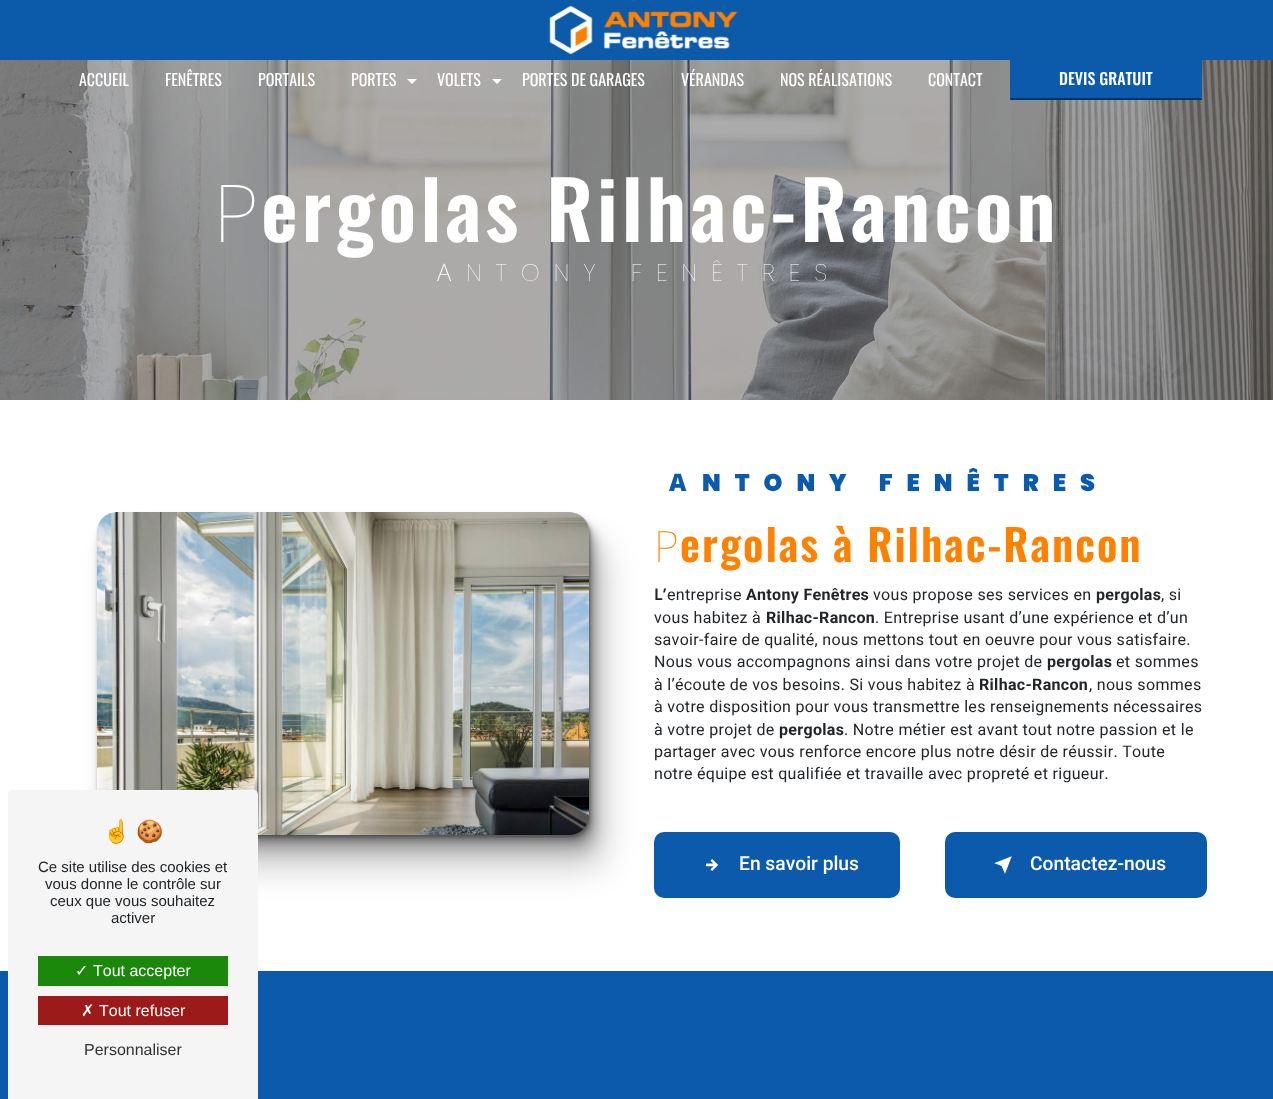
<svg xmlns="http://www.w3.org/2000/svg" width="1273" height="1099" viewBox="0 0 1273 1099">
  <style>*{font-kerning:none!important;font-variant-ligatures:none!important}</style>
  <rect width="100%" height="100%" fill="#fff"/>
  <path d="M0 0h1273v60H0z" fill="#0c5bab"/>
  <image x="549" y="5" width="189" height="50" href="img/1.png"/>
  <image x="0" y="60" width="1273" height="340" href="img/2.png"/>
  <path d="M407 79H417L412 84Z" fill="#fff"/>
  <path d="M492 79H502L497 84Z" fill="#fff"/>
  <path d="M1010 60h192v40H1010z" fill="#0c5aab"/>
  <path d="M1202 100H1010L1011 98H1201Z" fill="#00356f"/>
  <rect x="113" y="544" width="492" height="323" rx="20" fill="#00000033" filter="blur(16px)"/>
  <rect x="105" y="528" width="492" height="323" rx="20" fill="#00000033" filter="blur(8px)"/>
  <rect x="101" y="520" width="492" height="323" rx="20" fill="#00000033" filter="blur(4px)"/>
  <rect x="99" y="516" width="492" height="323" rx="20" fill="#00000033" filter="blur(2px)"/>
  <rect x="98" y="514" width="492" height="323" rx="20" fill="#00000033" filter="blur(1px)"/>
  <image x="97" y="512" width="492" height="323" href="img/3.png"/>
  <rect x="654" y="832" width="246" height="66" rx="10" fill="#0c5aab"/>
  <image x="706" y="859" width="12" height="12" href="img/4.png"/>
  <rect x="945" y="832" width="262" height="66" rx="10" fill="#0c5aab"/>
  <image x="994" y="856" width="18" height="18" href="img/5.png"/>
  <path d="M0 971h1273v128H0z" fill="#0c5aab"/>
  <path d="M13 790H253C256 790 258 792 258 795V1099H8V795C8 792 10 790 13 790Z" fill="#f5f5f5"/>
  <path d="M38 956h190v30H38z" fill="#1b870b"/>
  <path d="M38 996h190v29H38z" fill="#9c1a1a"/>
  <g font-family="Oswald" font-size="16" fill="#fff">
    <text x="79" y="86">ACCUEIL</text>
    <text x="165" y="86">FENÊTRES</text>
    <text x="258" y="86">PORTAILS</text>
    <text x="351" y="86">PORTES</text>
    <text x="437" y="86">VOLETS</text>
    <text x="522" y="86">PORTES DE GARAGES</text>
    <text x="681" y="86">VÉRANDAS</text>
    <text x="780" y="86">NOS RÉALISATIONS</text>
    <text x="928" y="86">CONTACT</text>
  </g>
  <text x="1059" y="85" font-family="Oswald" font-size="16" font-weight="500" fill="#fff">DEVIS GRATUIT</text>
  <text x="213" y="242" font-family="Noto Sans" font-size="80" font-weight="100" letter-spacing="4" fill="#fff">P</text>
  <text x="261" y="242" font-family="Oswald" font-size="80" font-weight="600" letter-spacing="4" fill="#fff">ergolas Rilhac-Rancon</text>
  <text x="437" y="281" font-family="Noto Sans" font-size="24" font-weight="200" letter-spacing="14" fill="#fff">A</text>
  <text x="466" y="281" font-family="Poppins" font-size="24" font-weight="100" letter-spacing="14" fill="#fff">NTONY FENÊTRES</text>
  <text x="669" y="491" font-family="Noto Sans" font-size="24" font-weight="900" letter-spacing="14" fill="#0c5aab">A</text>
  <text x="702" y="491" font-family="Poppins" font-size="24" font-weight="900" letter-spacing="14" fill="#0c5aab">NTONY FENÊTRES</text>
  <text x="654" y="562" font-family="Noto Sans" font-size="43.25" font-weight="100" letter-spacing="2" fill="#ff8100">P</text>
  <text x="680" y="562" font-family="Oswald" font-size="43.25" font-weight="600" letter-spacing="2" fill="#ff8100">ergolas à Rilhac-Rancon</text>
  <text x="654" y="600" font-family="Noto Sans" font-size="16" font-weight="600" letter-spacing="0.32" fill="#212529">L’</text>
  <text x="667" y="600" font-family="Roboto" font-size="16" letter-spacing="0.32" fill="#212529">entreprise</text>
  <text x="746" y="600" font-family="Roboto" font-size="16" font-weight="bold" letter-spacing="0.32" fill="#212529">Antony Fenêtres</text>
  <text x="873" y="600" font-family="Roboto" font-size="16" letter-spacing="0.32" fill="#212529">vous propose ses services en</text>
  <text x="1096" y="600" font-family="Roboto" font-size="16" font-weight="bold" letter-spacing="0.32" fill="#212529">pergolas</text>
  <g font-family="Roboto" font-size="16" letter-spacing="0.32" fill="#212529">
    <text x="1161" y="600">, si</text>
    <text x="654" y="623">vous habitez à</text>
  </g>
  <text x="766" y="623" font-family="Roboto" font-size="16" font-weight="bold" letter-spacing="0.32" fill="#212529">Rilhac-Rancon</text>
  <g font-family="Roboto" font-size="16" letter-spacing="0.32" fill="#212529">
    <text x="875" y="623">. Entreprise usant d’une expérience et d’un</text>
    <text x="654" y="645">savoir-faire de qualité, nous mettons tout en oeuvre pour vous satisfaire.</text>
    <text x="654" y="667">Nous vous accompagnons ainsi dans votre projet de</text>
  </g>
  <text x="1047" y="667" font-family="Roboto" font-size="16" font-weight="bold" letter-spacing="0.32" fill="#212529">pergolas</text>
  <g font-family="Roboto" font-size="16" letter-spacing="0.32" fill="#212529">
    <text x="1116" y="667">et sommes</text>
    <text x="654" y="690">à l’écoute de vos besoins. Si vous habitez à</text>
  </g>
  <text x="979" y="690" font-family="Roboto" font-size="16" font-weight="bold" letter-spacing="0.32" fill="#212529">Rilhac-Rancon</text>
  <g font-family="Roboto" font-size="16" letter-spacing="0.32" fill="#212529">
    <text x="1089" y="690">, nous sommes</text>
    <text x="654" y="712">à votre disposition pour vous transmettre les renseignements nécessaires</text>
    <text x="654" y="735">à votre projet de</text>
  </g>
  <text x="779" y="735" font-family="Roboto" font-size="16" font-weight="bold" letter-spacing="0.32" fill="#212529">pergolas</text>
  <g font-family="Roboto" font-size="16" letter-spacing="0.32" fill="#212529">
    <text x="844" y="735">. Notre métier est avant tout notre passion et le</text>
    <text x="654" y="757">partager avec vous renforce encore plus notre désir de réussir. Toute</text>
    <text x="654" y="779">notre équipe est qualifiée et travaille avec propreté et rigueur.</text>
  </g>
  <g font-family="Roboto" font-size="19.25" font-weight="500" fill="#fff">
    <text x="739" y="870">En savoir plus</text>
    <text x="1030" y="870">Contactez-nous</text>
  </g>
  <g font-family="Noto Color Emoji" font-size="22" fill="#212529">
    <text x="103" y="839">☝</text>
    <text x="136" y="839">🍪</text>
  </g>
  <g font-family="Liberation Sans" font-size="15" fill="#212529">
    <text x="38" y="872">Ce site utilise des cookies et</text>
    <text x="45" y="889">vous donne le contrôle sur</text>
    <text x="50" y="906">ceux que vous souhaitez</text>
    <text x="111" y="923">activer</text>
  </g>
  <text x="75" y="976" font-family="DejaVu Sans" font-size="16" fill="#fff">✓</text>
  <text x="93" y="976" font-family="Liberation Sans" font-size="16" fill="#fff">Tout accepter</text>
  <text x="81" y="1016" font-family="DejaVu Sans" font-size="16" fill="#fff">✗</text>
  <text x="99" y="1016" font-family="Liberation Sans" font-size="16" fill="#fff">Tout refuser</text>
  <text x="84" y="1055" font-family="Liberation Sans" font-size="16" fill="#333">Personnaliser</text>
</svg>
